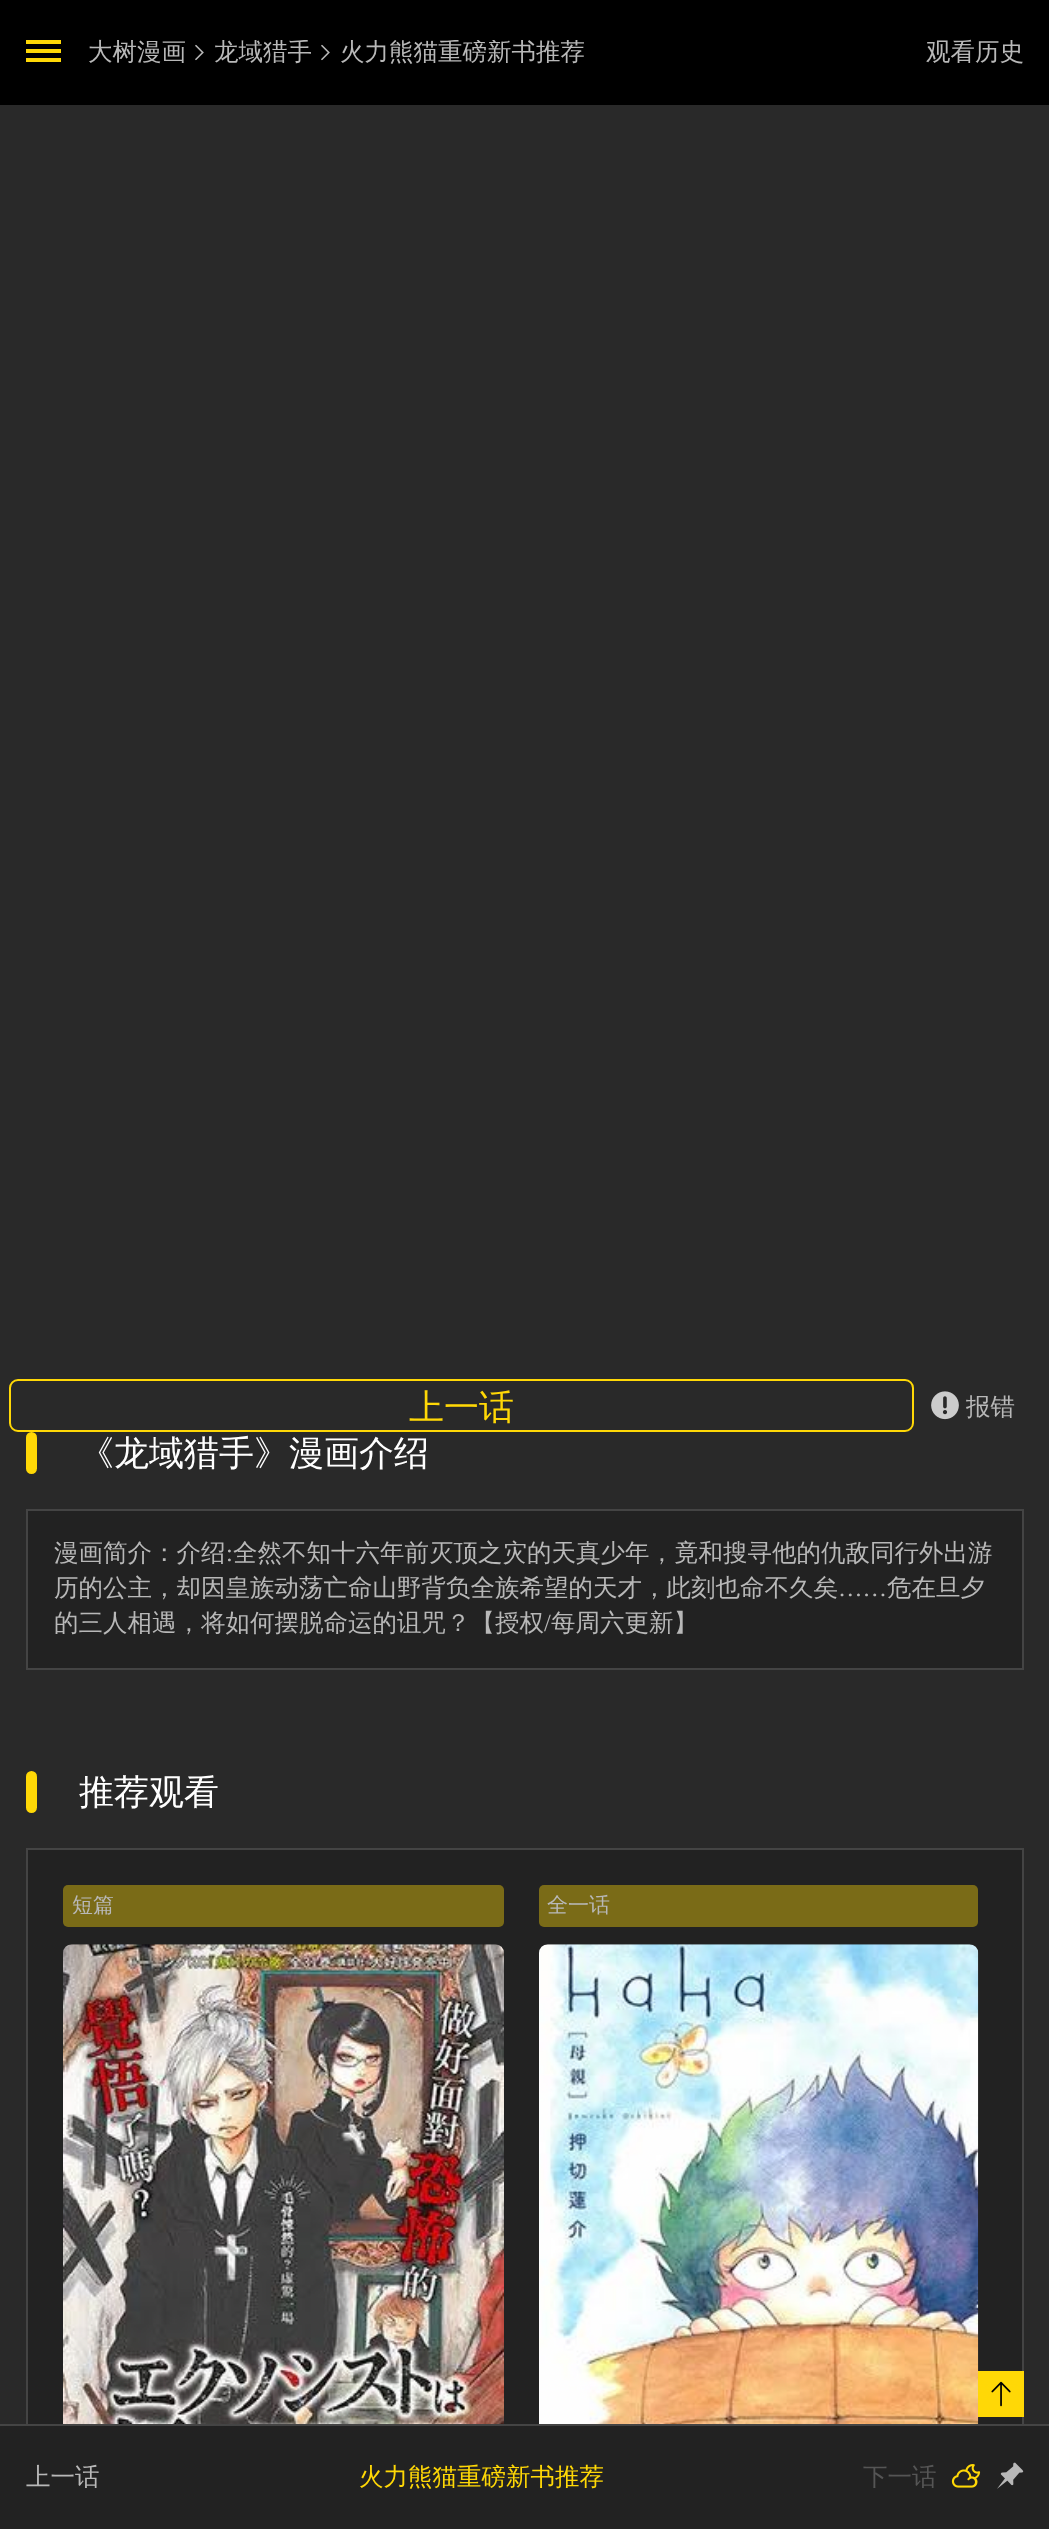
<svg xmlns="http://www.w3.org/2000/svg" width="1049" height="2529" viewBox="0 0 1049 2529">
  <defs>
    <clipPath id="clip1"><path d="M88 40h812v25H88z"/></clipPath>
  </defs>
  <rect width="100%" height="100%" fill="#292929"/>
  <path d="M0 0h1049v105H0z" fill="#000"/>
  <path d="M26 40h35v4H26z" fill="#ffd806"/>
  <path d="M26 49h35v4H26z" fill="#ffd806"/>
  <path d="M26 58h35v4H26z" fill="#ffd806"/>
  <image x="195" y="44" width="9" height="17" href="img/1.png"/>
  <image x="321" y="44" width="9" height="17" href="img/1.png"/>
  <rect x="10" y="1380" width="903" height="51" rx="8" fill="none" stroke="#ffd806" stroke-width="2"/>
  <image x="931" y="1391" width="28" height="29" href="img/2.png"/>
  <rect x="26" y="1432" width="11" height="42" rx="5.5" fill="#ffd806"/>
  <path d="M27 1510h996v159H27z" fill="#222" stroke="#444" stroke-width="2"/>
  <rect x="26" y="1771" width="11" height="42" rx="5.5" fill="#ffd806"/>
  <path d="M28 1850h994v574H28z" fill="#222"/>
  <path d="M27 1849h996v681H27z" fill="none" stroke="#444" stroke-width="2"/>
  <rect x="63" y="1885" width="441" height="42" rx="5" fill="#7a6b17"/>
  <image x="63" y="1944" width="441" height="480" href="img/3.png"/>
  <rect x="539" y="1885" width="439" height="42" rx="5" fill="#7a6b17"/>
  <image x="539" y="1944" width="440" height="480" href="img/4.png"/>
  <path d="M978 2371h46v46H978z" fill="#ffd806"/>
  <image x="991" y="2381" width="20" height="26" href="img/5.png"/>
  <path d="M-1 2425h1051v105H-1z" fill="none" stroke="#444" stroke-width="2"/>
  <path d="M0 2426h1049v103H0z" fill="#222"/>
  <image x="951" y="2464" width="30" height="24" href="img/6.png"/>
  <image x="997" y="2462" width="27" height="27" href="img/7.png"/>
  <text x="88" y="60" font-family="WenQuanYi Zen Hei" font-size="24.5" font-weight="500" fill="#b8b8b8">大树漫画</text>
  <g clip-path="url(#clip1)">
    <g font-family="WenQuanYi Zen Hei" font-size="24.5" font-weight="500" fill="#b8b8b8">
      <text x="214" y="60">龙域猎手</text>
      <text x="340" y="60">火力熊猫重磅新书推荐</text>
    </g>
  </g>
  <text x="926" y="60" font-family="WenQuanYi Zen Hei" font-size="24.5" font-weight="500" fill="#b8b8b8">观看历史</text>
  <text x="409" y="1419" font-family="WenQuanYi Zen Hei" font-size="35" font-weight="500" fill="#ffd806">上一话</text>
  <text x="966" y="1415" font-family="WenQuanYi Zen Hei" font-size="24.5" font-weight="500" fill="#b8b8b8">报错</text>
  <text x="79" y="1465" font-family="WenQuanYi Zen Hei" font-size="35" font-weight="500" fill="#fff">《龙域猎手》漫画介绍</text>
  <text x="54" y="1561" font-family="WenQuanYi Zen Hei" font-size="24.5" font-weight="500" fill="#b8b8b8">漫画简介：介绍</text>
  <text x="226" y="1561" font-family="Liberation Serif" font-size="24.5" fill="#b8b8b8">:</text>
  <g font-family="WenQuanYi Zen Hei" font-size="24.5" font-weight="500" fill="#b8b8b8">
    <text x="233" y="1561">全然不知十六年前灭顶之灾的天真少年，竟和搜寻他的仇敌同行外出游</text>
    <text x="54" y="1596">历的公主，却因皇族动荡亡命山野背负全族希望的天才，此刻也命不久矣</text>
  </g>
  <text x="838" y="1596" font-family="Liberation Serif" font-size="24.5" fill="#b8b8b8">……</text>
  <g font-family="WenQuanYi Zen Hei" font-size="24.5" font-weight="500" fill="#b8b8b8">
    <text x="887" y="1596">危在旦夕</text>
    <text x="54" y="1631">的三人相遇，将如何摆脱命运的诅咒？【授权</text>
  </g>
  <text x="544" y="1631" font-family="Liberation Serif" font-size="24.5" fill="#b8b8b8">/</text>
  <text x="551" y="1631" font-family="WenQuanYi Zen Hei" font-size="24.5" font-weight="500" fill="#b8b8b8">每周六更新】</text>
  <text x="79" y="1804" font-family="WenQuanYi Zen Hei" font-size="35" font-weight="500" fill="#fff">推荐观看</text>
  <g font-family="WenQuanYi Zen Hei" font-size="21" font-weight="500" fill="#b8b8b8">
    <text x="72" y="1912">短篇</text>
    <text x="547" y="1912">全一话</text>
  </g>
  <text x="26" y="2485" font-family="WenQuanYi Zen Hei" font-size="24.5" font-weight="500" fill="#b8b8b8">上一话</text>
  <text x="359" y="2485" font-family="WenQuanYi Zen Hei" font-size="24.5" font-weight="500" fill="#ffd806">火力熊猫重磅新书推荐</text>
  <text x="863" y="2485" font-family="WenQuanYi Zen Hei" font-size="24.5" font-weight="500" fill="#555">下一话</text>
</svg>
